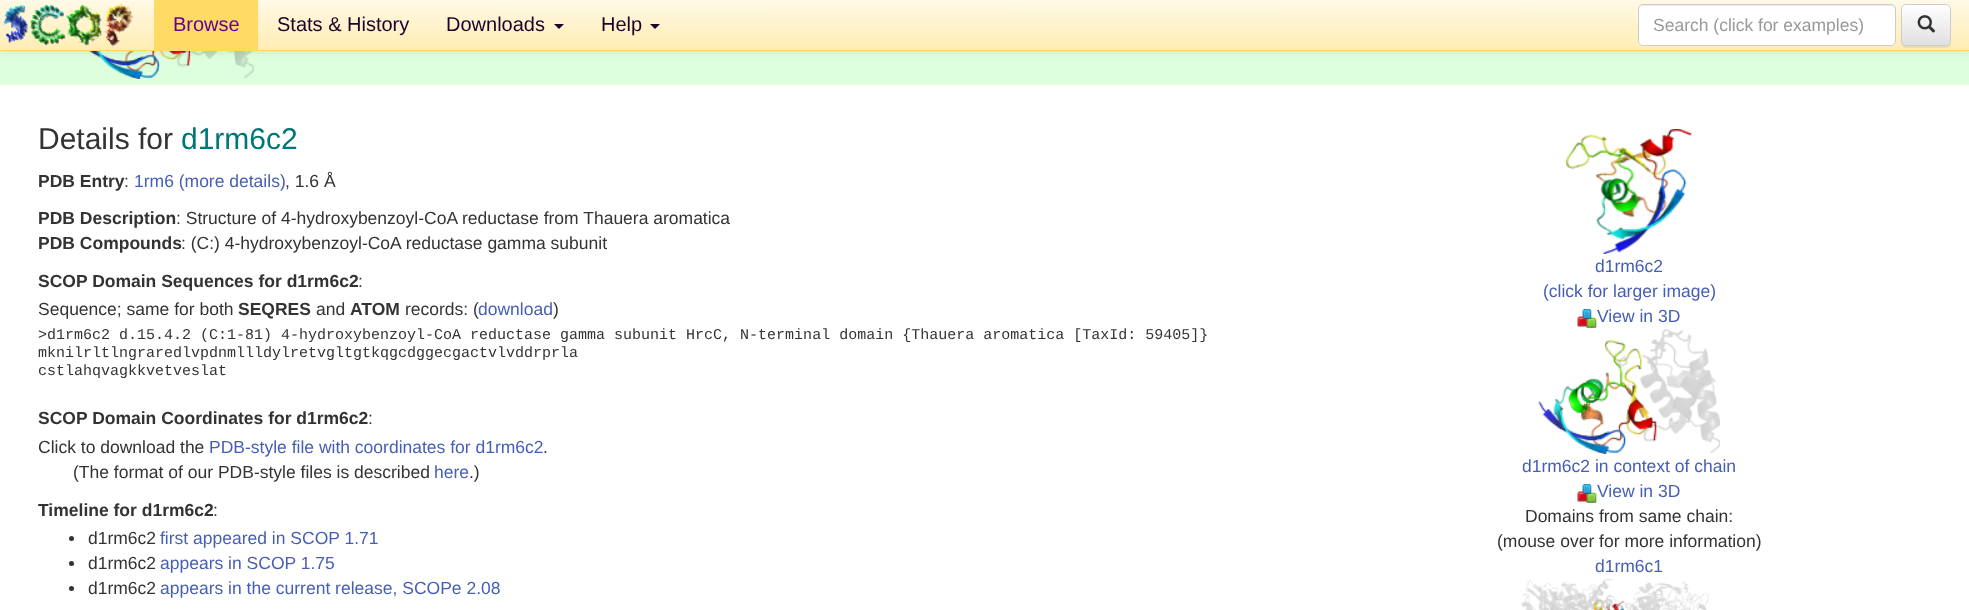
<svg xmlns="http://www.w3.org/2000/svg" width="1969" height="610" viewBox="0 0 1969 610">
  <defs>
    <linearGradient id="g1" gradientUnits="userSpaceOnUse" x1="985" y1="0" x2="985" y2="50"><stop offset="0" stop-color="#fff9e6"/><stop offset="1" stop-color="#ffedb3"/></linearGradient>
    <clipPath id="clip1"><rect x="1901" y="4" width="50" height="42" rx="5"/></clipPath>
    <linearGradient id="g2" gradientUnits="userSpaceOnUse" x1="1926" y1="5" x2="1926" y2="45"><stop offset="0" stop-color="#fff"/><stop offset="1" stop-color="#e0e0e0"/></linearGradient>
  </defs>
  <rect width="100%" height="100%" fill="#fff"/>
  <path d="M0 51h1969v34H0z" fill="#dfd"/>
  <image x="89" y="51" width="165" height="28" href="img/3.png"/>
  <path d="M0 1h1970v52H0z" fill="#00000012" filter="blur(3px)"/>
  <path d="M0 1h1969v49H0z" fill="url(#g1)"/>
  <path d="M0 0h1969v1H0z" fill="#fffae9"/>
  <path d="M0 50h1969v1H0z" fill="#ffda65"/>
  <image x="3" y="3" width="130" height="44" href="img/1.png"/>
  <path d="M154 0h104v50H154z" fill="#ffda65"/>
  <path d="M554 24H564L559 29Z" fill="#1d002b"/>
  <path d="M650 24H660L655 29Z" fill="#1d002b"/>
  <rect x="1638" y="4" width="258" height="42" rx="5" fill="#fff"/>
  <path d="M1642 6H1892L1894 8L1895 10V9C1895 7 1893 5 1891 5H1643C1641 5 1639 7 1639 9V10C1639 8 1640 6 1642 6Z" fill="#ececec"/>
  <rect x="1638.5" y="4.5" width="257" height="41" rx="4.5" fill="none" stroke="#ccc"/>
  <rect x="1901" y="5" width="50" height="43" rx="5" fill="#00000012" filter="blur(0.5px)"/>
  <g clip-path="url(#clip1)">
    <path d="M1901 5h50v40H1901z" fill="url(#g2)"/>
  </g>
  <rect x="1901.5" y="4.5" width="49" height="41" rx="4.5" fill="none" stroke="#ccc"/>
  <image x="1917" y="15" width="19" height="18" href="img/2.png"/>
  <circle cx="71.5" cy="538.5" r="2.5" fill="#333"/>
  <circle cx="71.5" cy="563.5" r="2.5" fill="#333"/>
  <circle cx="71.5" cy="588.5" r="2.5" fill="#333"/>
  <image x="1566" y="129" width="126" height="125" href="img/4.png"/>
  <image x="1577" y="309" width="20" height="19" href="img/5.png"/>
  <image x="1538" y="329" width="182" height="125" href="img/6.png"/>
  <image x="1577" y="484" width="20" height="19" href="img/5.png"/>
  <image x="1521" y="579" width="188" height="31" href="img/7.png"/>
  <text x="173" y="31" font-family="Liberation Sans" font-size="20" fill="#609">Browse</text>
  <g font-family="Liberation Sans" font-size="20" fill="#1d002b">
    <text x="277" y="31">Stats &amp; History</text>
    <text x="446" y="31">Downloads</text>
    <text x="601" y="31">Help</text>
  </g>
  <text x="1653" y="31" font-family="Liberation Sans" font-size="17.5" fill="#999">Search (click for examples)</text>
  <text x="38" y="149" font-family="Liberation Sans" font-size="30" fill="#333">Details for</text>
  <text x="181" y="149" font-family="Liberation Sans" font-size="30" fill="#077">d1rm6c2</text>
  <text x="38" y="187" font-family="Liberation Sans" font-size="17.5" font-weight="bold" fill="#333">PDB Entry</text>
  <text x="124" y="187" font-family="Liberation Sans" font-size="17.5" fill="#333">:</text>
  <text x="134" y="187" font-family="Liberation Sans" font-size="17.5" fill="#465eb4">1rm6 (more details)</text>
  <text x="285" y="187" font-family="Liberation Sans" font-size="17.5" fill="#333">, 1.6 Å</text>
  <text x="38" y="224" font-family="Liberation Sans" font-size="17.5" font-weight="bold" fill="#333">PDB Description</text>
  <text x="176" y="224" font-family="Liberation Sans" font-size="17.5" fill="#333">: Structure of 4-hydroxybenzoyl-CoA reductase from Thauera aromatica</text>
  <text x="38" y="249" font-family="Liberation Sans" font-size="17.5" font-weight="bold" fill="#333">PDB Compounds</text>
  <text x="181" y="249" font-family="Liberation Sans" font-size="17.5" fill="#333">: (C:) 4-hydroxybenzoyl-CoA reductase gamma subunit</text>
  <text x="38" y="287" font-family="Liberation Sans" font-size="17.5" font-weight="bold" fill="#333">SCOP Domain Sequences for d1rm6c2</text>
  <g font-family="Liberation Sans" font-size="17.5" fill="#333">
    <text x="358" y="287">:</text>
    <text x="38" y="315">Sequence; same for both</text>
  </g>
  <text x="238" y="315" font-family="Liberation Sans" font-size="17.5" font-weight="bold" fill="#333">SEQRES</text>
  <text x="316" y="315" font-family="Liberation Sans" font-size="17.5" fill="#333">and</text>
  <text x="350" y="315" font-family="Liberation Sans" font-size="17.5" font-weight="bold" fill="#333">ATOM</text>
  <text x="405" y="315" font-family="Liberation Sans" font-size="17.5" fill="#333">records: (</text>
  <text x="478" y="315" font-family="Liberation Sans" font-size="17.5" fill="#465eb4">download</text>
  <text x="553" y="315" font-family="Liberation Sans" font-size="17.5" fill="#333">)</text>
  <g font-family="Liberation Mono" font-size="15" fill="#333">
    <text x="38" y="339">&gt;d1rm6c2 d.15.4.2 (C:1-81) 4-hydroxybenzoyl-CoA reductase gamma subunit HrcC, N-terminal domain {Thauera aromatica [TaxId: 59405]}</text>
    <text x="38" y="357">mknilrltlngraredlvpdnmllldylretvgltgtkqgcdggecgactvlvddrprla</text>
    <text x="38" y="375">cstlahqvagkkvetveslat</text>
  </g>
  <text x="38" y="424" font-family="Liberation Sans" font-size="17.5" font-weight="bold" fill="#333">SCOP Domain Coordinates for d1rm6c2</text>
  <g font-family="Liberation Sans" font-size="17.5" fill="#333">
    <text x="368" y="424">:</text>
    <text x="38" y="453">Click to download the</text>
  </g>
  <text x="209" y="453" font-family="Liberation Sans" font-size="17.5" fill="#465eb4">PDB-style file with coordinates for d1rm6c2</text>
  <g font-family="Liberation Sans" font-size="17.5" fill="#333">
    <text x="543" y="453">.</text>
    <text x="73" y="478">(The format of our PDB-style files is described</text>
  </g>
  <text x="434" y="478" font-family="Liberation Sans" font-size="17.5" fill="#465eb4">here</text>
  <text x="469" y="478" font-family="Liberation Sans" font-size="17.5" fill="#333">.)</text>
  <text x="38" y="516" font-family="Liberation Sans" font-size="17.5" font-weight="bold" fill="#333">Timeline for d1rm6c2</text>
  <g font-family="Liberation Sans" font-size="17.5" fill="#333">
    <text x="213" y="516">:</text>
    <text x="88" y="544">d1rm6c2</text>
  </g>
  <text x="160" y="544" font-family="Liberation Sans" font-size="17.5" fill="#465eb4">first appeared in SCOP 1.71</text>
  <text x="88" y="569" font-family="Liberation Sans" font-size="17.5" fill="#333">d1rm6c2</text>
  <text x="160" y="569" font-family="Liberation Sans" font-size="17.5" fill="#465eb4">appears in SCOP 1.75</text>
  <text x="88" y="594" font-family="Liberation Sans" font-size="17.5" fill="#333">d1rm6c2</text>
  <g font-family="Liberation Sans" font-size="17.5" fill="#465eb4">
    <text x="160" y="594">appears in the current release, SCOPe 2.08</text>
    <text x="1595" y="272">d1rm6c2</text>
    <text x="1543" y="297">(click for larger image)</text>
    <text x="1597" y="322">View in 3D</text>
    <text x="1522" y="472">d1rm6c2 in context of chain</text>
    <text x="1597" y="497">View in 3D</text>
  </g>
  <g font-family="Liberation Sans" font-size="17.5" fill="#333">
    <text x="1525" y="522">Domains from same chain:</text>
    <text x="1497" y="547">(mouse over for more information)</text>
  </g>
  <text x="1595" y="572" font-family="Liberation Sans" font-size="17.5" fill="#465eb4">d1rm6c1</text>
</svg>
